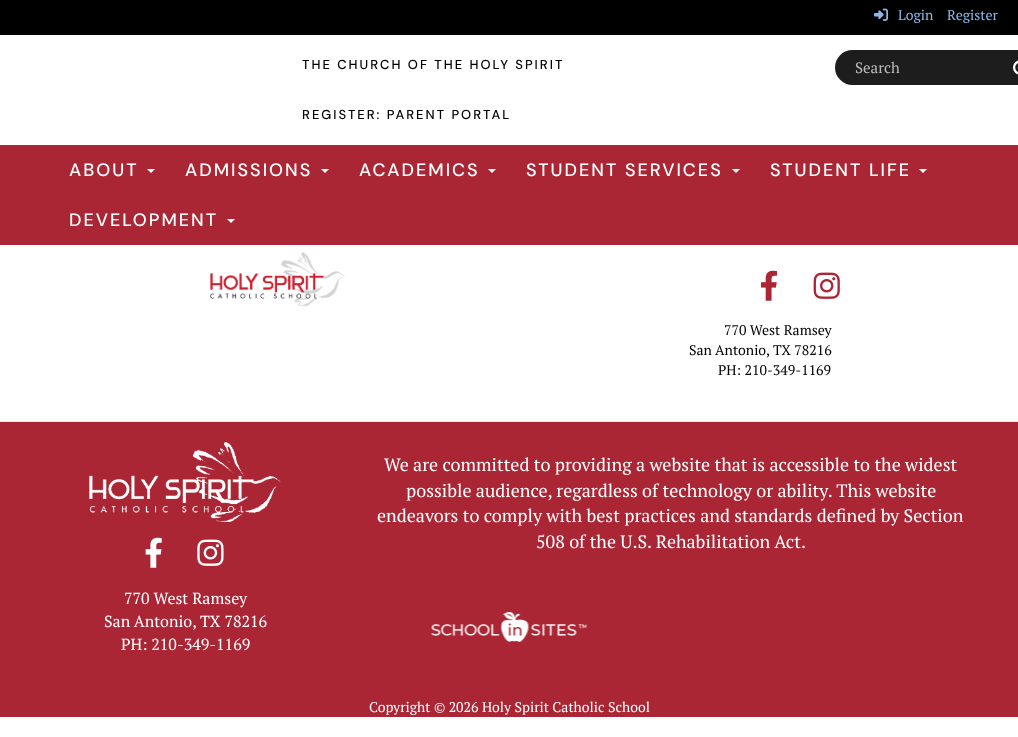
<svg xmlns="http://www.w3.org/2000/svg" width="1018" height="737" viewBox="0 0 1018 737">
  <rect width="100%" height="100%" fill="#fff"/>
  <path d="M0 0h1018v35H0z" fill="#000"/>
  <image x="874" y="8" width="14" height="13" href="img/1.png"/>
  <rect x="835" y="50" width="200" height="35" rx="17.5" fill="#1e1d1d"/>
  <image x="1013" y="60" width="5" height="15" href="img/2.png"/>
  <path d="M0 145h1018v100H0z" fill="#ab2635"/>
  <path d="M147 169H155L151 173Z" fill="#fff"/>
  <path d="M321 169H329L325 173Z" fill="#fff"/>
  <path d="M488 169H496L492 173Z" fill="#fff"/>
  <path d="M732 169H740L736 173Z" fill="#fff"/>
  <path d="M919 169H927L923 173Z" fill="#fff"/>
  <path d="M227 219H235L231 223Z" fill="#fff"/>
  <image x="210" y="252" width="135" height="55" href="img/3.png"/>
  <image x="760" y="270" width="17" height="31" href="img/4.png"/>
  <image x="813" y="272" width="27" height="27" href="img/5.png"/>
  <path d="M0 422h1018v295H0z" fill="#ab2635"/>
  <path d="M0 421h1018v1H0z" fill="#eaeaea"/>
  <image x="431" y="612" width="156" height="30" href="img/6.png"/>
  <image x="89" y="442" width="192" height="80" href="img/7.png"/>
  <image x="145" y="537" width="17" height="31" href="img/8.png"/>
  <image x="197" y="539" width="27" height="27" href="img/9.png"/>
  <g font-family="PT Serif" font-size="14" fill="#8bb9ee">
    <text x="898" y="20">Login</text>
    <text x="947" y="20">Register</text>
  </g>
  <g font-family="DM Sans" font-size="13" font-weight="500" letter-spacing="2" fill="#000">
    <text x="302" y="69">THE CHURCH OF THE HOLY SPIRIT</text>
    <text x="302" y="119">REGISTER: PARENT PORTAL</text>
  </g>
  <text x="855" y="73" font-family="PT Serif" font-size="15" fill="#bababa">Search</text>
  <g font-family="DM Sans" font-size="18" font-weight="500" letter-spacing="2" fill="#fff">
    <text x="69" y="176">ABOUT</text>
    <text x="185" y="176">ADMISSIONS</text>
    <text x="359" y="176">ACADEMICS</text>
    <text x="526" y="176">STUDENT SERVICES</text>
    <text x="770" y="176">STUDENT LIFE</text>
    <text x="69" y="226">DEVELOPMENT</text>
  </g>
  <g font-family="PT Serif" font-size="14" fill="#000">
    <text x="724" y="335">770 West Ramsey</text>
    <text x="689" y="355">San Antonio, TX 78216</text>
    <text x="718" y="375">PH: 210-349-1169</text>
  </g>
  <g font-family="PT Serif" font-size="18" fill="#fff">
    <text x="384" y="471">We are committed to providing a website that is accessible to the widest</text>
    <text x="406" y="497">possible audience, regardless of technology or ability. This website</text>
    <text x="377" y="522">endeavors to comply with best practices and standards defined by Section</text>
    <text x="536" y="548">508 of the U.S. Rehabilitation Act.</text>
  </g>
  <g font-family="PT Serif" font-size="16" fill="#fff">
    <text x="124" y="604">770 West Ramsey</text>
    <text x="104" y="627">San Antonio, TX 78216</text>
    <text x="121" y="650">PH: 210-349-1169</text>
  </g>
  <text x="369" y="712" font-family="PT Serif" font-size="14" fill="#fff">Copyright © 2026 Holy Spirit Catholic School</text>
</svg>
